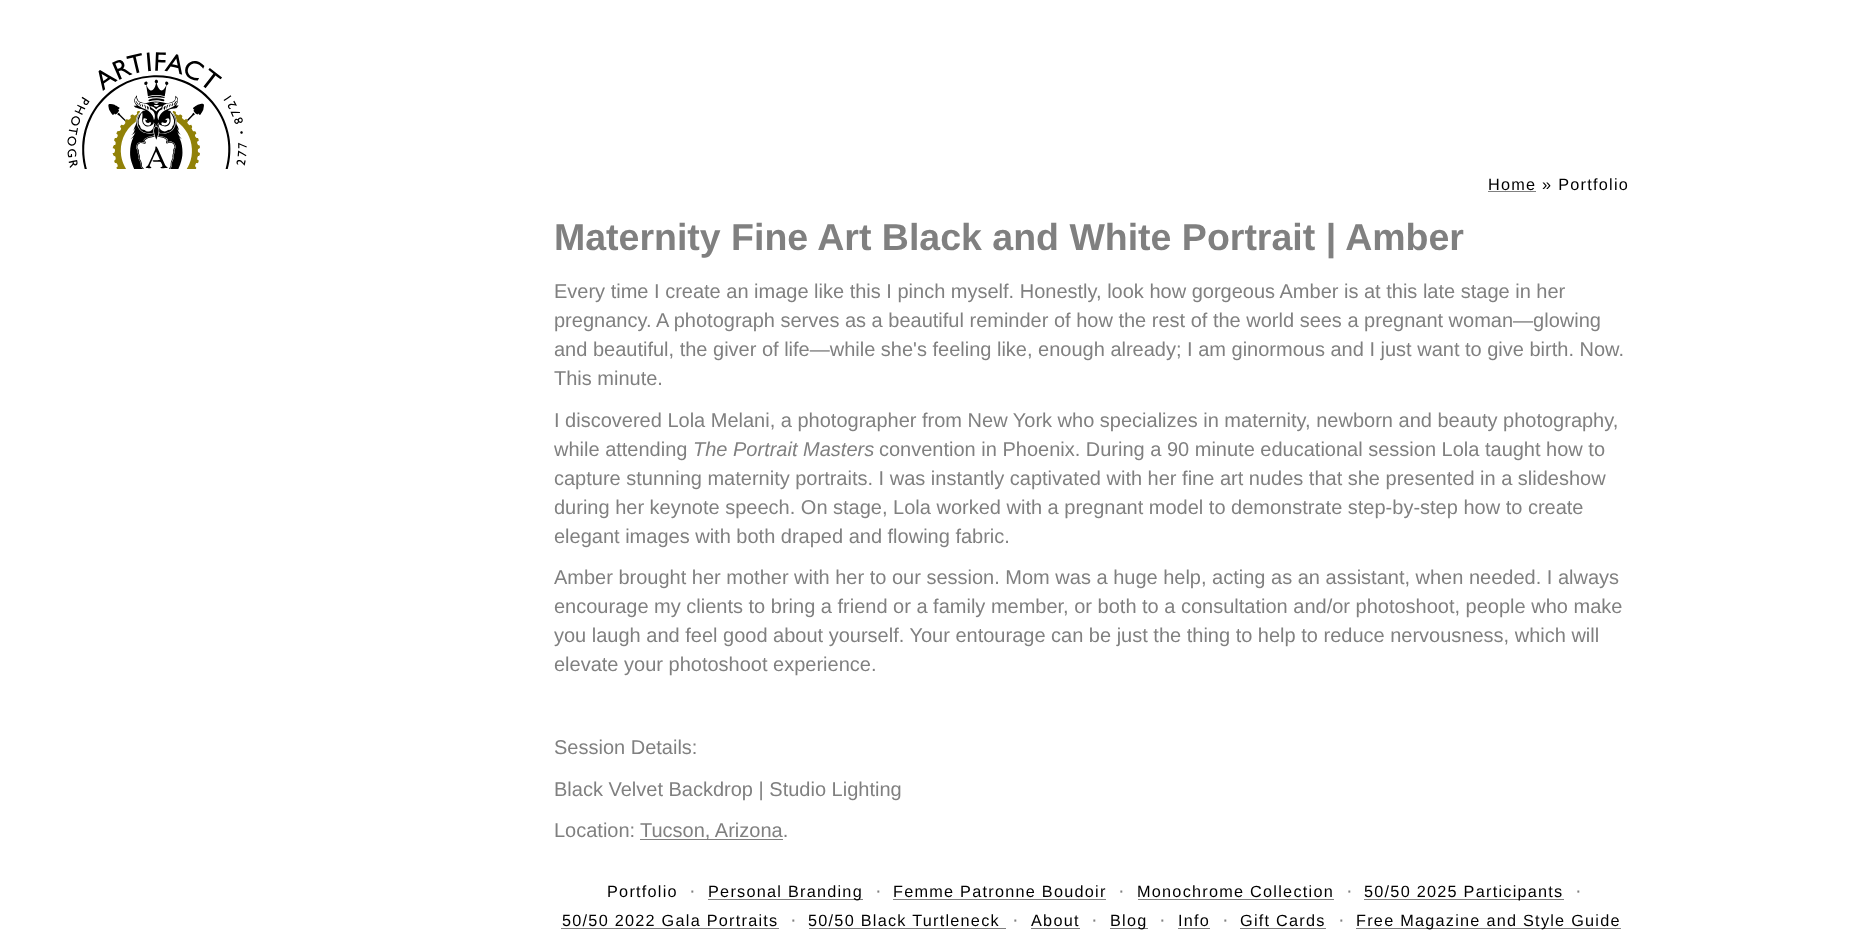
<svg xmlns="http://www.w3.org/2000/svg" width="1870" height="942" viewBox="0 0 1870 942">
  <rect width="100%" height="100%" fill="#fff"/>
  <image x="67" y="52" width="180" height="117" href="img/1.png"/>
  <path d="M1488 191h48v1H1488z" fill="#808080"/>
  <path d="M640 839h143v1H640z" fill="#808080"/>
  <path d="M708 899h155v1H708z" fill="#808080"/>
  <path d="M893 899h213v1H893z" fill="#808080"/>
  <path d="M1138 899h196v1H1138z" fill="#808080"/>
  <path d="M1364 899h200v1H1364z" fill="#808080"/>
  <path d="M561 928h218v1H561z" fill="#808080"/>
  <path d="M809 928h197v1H809z" fill="#808080"/>
  <path d="M1031 928h49v1H1031z" fill="#808080"/>
  <path d="M1110 928h38v1H1110z" fill="#808080"/>
  <path d="M1178 928h32v1H1178z" fill="#808080"/>
  <path d="M1240 928h86v1H1240z" fill="#808080"/>
  <path d="M1356 928h265v1H1356z" fill="#808080"/>
  <text x="1488" y="190" font-family="Liberation Sans" font-size="16.25" letter-spacing="1.25" fill="#000">Home » Portfolio</text>
  <text x="554" y="250" font-family="Liberation Sans" font-size="37.5" font-weight="bold" fill="#808080">Maternity Fine Art Black and White Portrait | Amber</text>
  <g font-family="Liberation Sans" font-size="20" fill="#808080">
    <text x="554" y="298">Every time I create an image like this I pinch myself. Honestly, look how gorgeous Amber is at this late stage in her</text>
    <text x="554" y="327">pregnancy. A photograph serves as a beautiful reminder of how the rest of the world sees a pregnant woman—glowing</text>
    <text x="554" y="356">and beautiful, the giver of life—while she's feeling like, enough already; I am ginormous and I just want to give birth. Now.</text>
    <text x="554" y="385">This minute.</text>
    <text x="554" y="427">I discovered Lola Melani, a photographer from New York who specializes in maternity, newborn and beauty photography,</text>
    <text x="554" y="456">while attending</text>
  </g>
  <text x="693" y="456" font-family="Liberation Sans" font-size="20" font-style="italic" fill="#808080">The Portrait Masters</text>
  <g font-family="Liberation Sans" font-size="20" fill="#808080">
    <text x="879" y="456">convention in Phoenix. During a 90 minute educational session Lola taught how to</text>
    <text x="554" y="485">capture stunning maternity portraits. I was instantly captivated with her fine art nudes that she presented in a slideshow</text>
    <text x="554" y="514">during her keynote speech. On stage, Lola worked with a pregnant model to demonstrate step-by-step how to create</text>
    <text x="554" y="543">elegant images with both draped and flowing fabric.</text>
    <text x="554" y="584">Amber brought her mother with her to our session. Mom was a huge help, acting as an assistant, when needed. I always</text>
    <text x="554" y="613">encourage my clients to bring a friend or a family member, or both to a consultation and/or photoshoot, people who make</text>
    <text x="554" y="642">you laugh and feel good about yourself. Your entourage can be just the thing to help to reduce nervousness, which will</text>
    <text x="554" y="671">elevate your photoshoot experience.</text>
    <text x="554" y="754">Session Details:</text>
    <text x="554" y="796">Black Velvet Backdrop | Studio Lighting</text>
    <text x="554" y="837">Location:</text>
    <text x="640" y="837">Tucson, Arizona.</text>
  </g>
  <text x="607" y="897" font-family="Liberation Sans" font-size="16.25" letter-spacing="1.25" fill="#000">Portfolio</text>
  <text x="689" y="897" font-family="Liberation Sans" font-size="20" fill="#808080">·</text>
  <text x="708" y="897" font-family="Liberation Sans" font-size="16.25" letter-spacing="1.25" fill="#000">Personal Branding</text>
  <text x="875" y="897" font-family="Liberation Sans" font-size="20" fill="#808080">·</text>
  <text x="893" y="897" font-family="Liberation Sans" font-size="16.25" letter-spacing="1.25" fill="#000">Femme Patronne Boudoir</text>
  <text x="1118" y="897" font-family="Liberation Sans" font-size="20" fill="#808080">·</text>
  <text x="1137" y="897" font-family="Liberation Sans" font-size="16.25" letter-spacing="1.25" fill="#000">Monochrome Collection</text>
  <text x="1346" y="897" font-family="Liberation Sans" font-size="20" fill="#808080">·</text>
  <text x="1364" y="897" font-family="Liberation Sans" font-size="16.25" letter-spacing="1.25" fill="#000">50/50 2025 Participants</text>
  <text x="1575" y="897" font-family="Liberation Sans" font-size="20" fill="#808080">·</text>
  <text x="562" y="926" font-family="Liberation Sans" font-size="16.25" letter-spacing="1.25" fill="#000">50/50 2022 Gala Portraits</text>
  <text x="790" y="926" font-family="Liberation Sans" font-size="20" fill="#808080">·</text>
  <text x="808" y="926" font-family="Liberation Sans" font-size="16.25" letter-spacing="1.25" fill="#000">50/50 Black Turtleneck</text>
  <text x="1012" y="926" font-family="Liberation Sans" font-size="20" fill="#808080">·</text>
  <text x="1031" y="926" font-family="Liberation Sans" font-size="16.25" letter-spacing="1.25" fill="#000">About</text>
  <text x="1091" y="926" font-family="Liberation Sans" font-size="20" fill="#808080">·</text>
  <text x="1110" y="926" font-family="Liberation Sans" font-size="16.25" letter-spacing="1.25" fill="#000">Blog</text>
  <text x="1159" y="926" font-family="Liberation Sans" font-size="20" fill="#808080">·</text>
  <text x="1178" y="926" font-family="Liberation Sans" font-size="16.25" letter-spacing="1.25" fill="#000">Info</text>
  <text x="1222" y="926" font-family="Liberation Sans" font-size="20" fill="#808080">·</text>
  <text x="1240" y="926" font-family="Liberation Sans" font-size="16.25" letter-spacing="1.25" fill="#000">Gift Cards</text>
  <text x="1338" y="926" font-family="Liberation Sans" font-size="20" fill="#808080">·</text>
  <text x="1356" y="926" font-family="Liberation Sans" font-size="16.25" letter-spacing="1.25" fill="#000">Free Magazine and Style Guide</text>
</svg>
